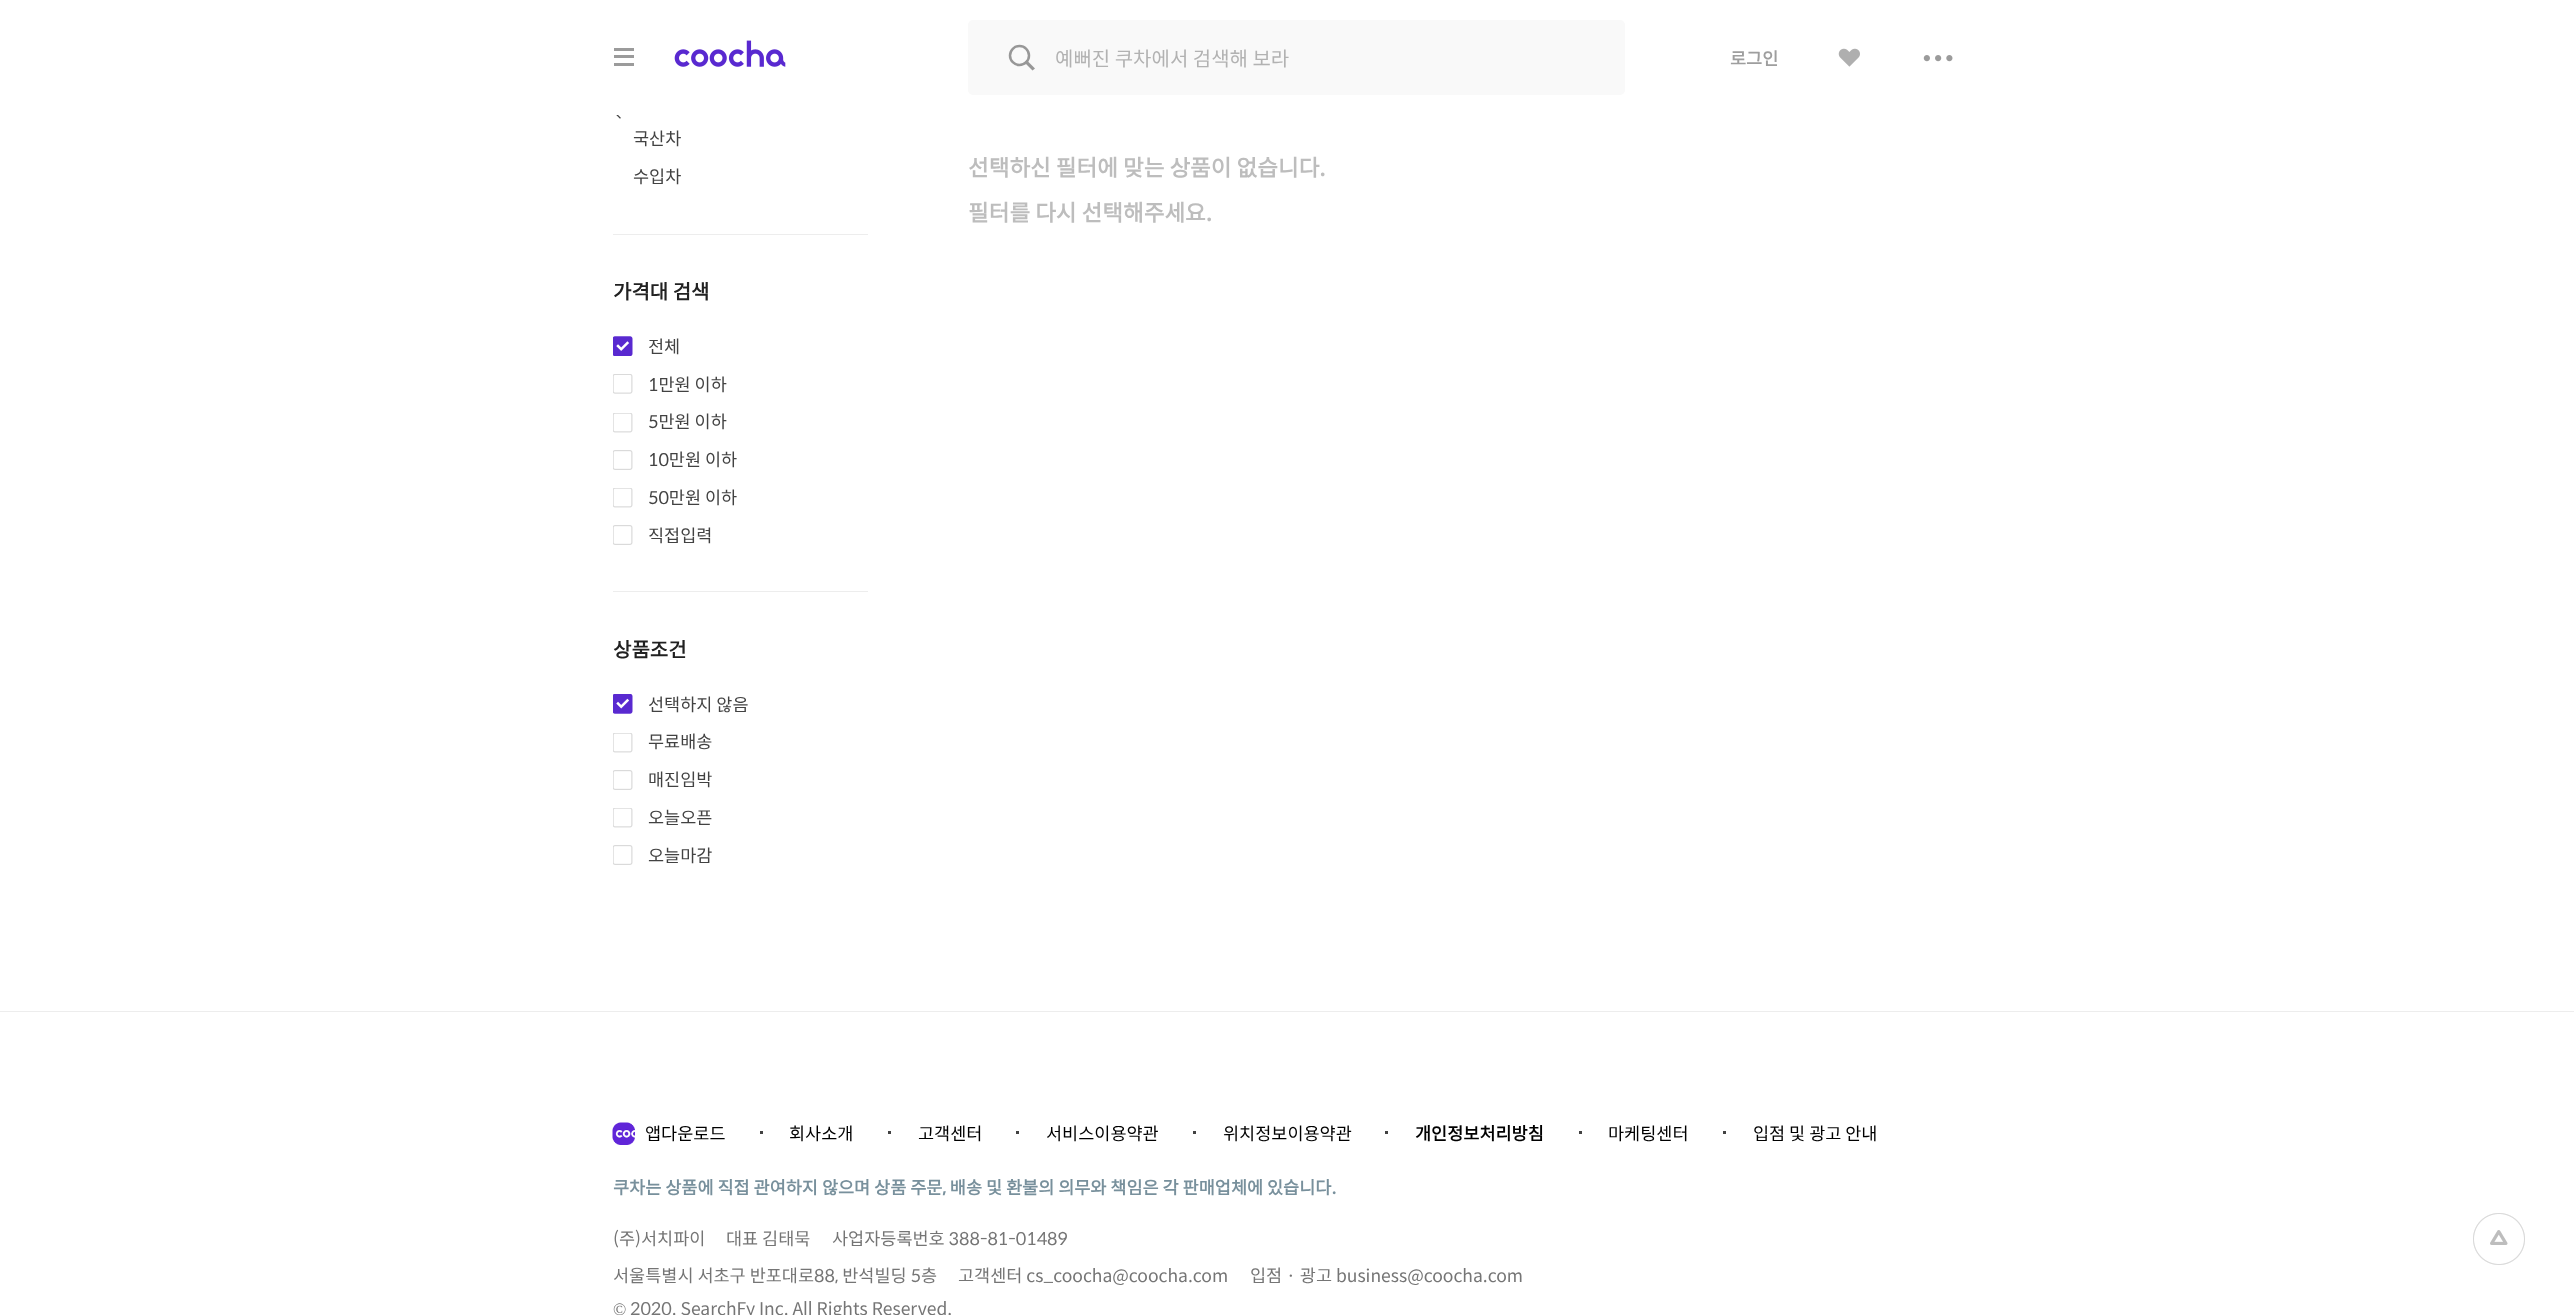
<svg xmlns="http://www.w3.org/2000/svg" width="2574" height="1315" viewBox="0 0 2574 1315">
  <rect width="100%" height="100%" fill="#fff"/>
  <path d="M614 48h20v3H614z" fill="#9b9b9b"/>
  <path d="M614 55h20v3H614z" fill="#9b9b9b"/>
  <path d="M614 63h20v3H614z" fill="#9b9b9b"/>
  <image x="674" y="40" width="112" height="27" href="img/1.png"/>
  <rect x="968" y="20" width="657" height="75" rx="5" fill="#f9f9f9"/>
  <circle cx="1019.5" cy="55.5" r="9.5" fill="none" stroke="#979797" stroke-width="2.5"/>
  <path d="M1024.5 62.5L1026.5 60L1035 68.5L1032.5 70.5Z" fill="#979797" fill-rule="evenodd"/>
  <image x="1838" y="48" width="22" height="19" href="img/2.png"/>
  <image x="1923" y="55" width="30" height="7" href="img/3.png"/>
  <image x="616" y="115" width="5" height="4" href="img/4.png"/>
  <path d="M613 234h255v1H613z" fill="#ededed"/>
  <image x="613" y="336" width="20" height="20" href="img/5.png"/>
  <image x="613" y="374" width="20" height="20" href="img/6.png"/>
  <image x="613" y="413" width="20" height="20" href="img/7.png"/>
  <image x="613" y="450" width="20" height="20" href="img/8.png"/>
  <image x="613" y="488" width="20" height="20" href="img/7.png"/>
  <image x="613" y="525" width="20" height="20" href="img/8.png"/>
  <path d="M613 591h255v1H613z" fill="#ededed"/>
  <image x="613" y="694" width="20" height="20" href="img/9.png"/>
  <image x="613" y="733" width="20" height="20" href="img/7.png"/>
  <image x="613" y="770" width="20" height="20" href="img/8.png"/>
  <image x="613" y="808" width="20" height="20" href="img/7.png"/>
  <image x="613" y="845" width="20" height="20" href="img/8.png"/>
  <image x="2473" y="1213" width="52" height="52" href="img/10.png"/>
  <path d="M0 1011h2574v1H0z" fill="#ededed"/>
  <image x="612" y="1122" width="23" height="23" href="img/11.png"/>
  <path d="M760 1131h3v3H760z" fill="#424242"/>
  <path d="M888 1131h3v3H888z" fill="#424242"/>
  <path d="M1016 1131h3v3H1016z" fill="#424242"/>
  <path d="M1193 1131h3v3H1193z" fill="#424242"/>
  <path d="M1385 1131h3v3H1385z" fill="#424242"/>
  <path d="M1579 1131h3v3H1579z" fill="#424242"/>
  <path d="M1723 1131h3v3H1723z" fill="#424242"/>
  <image x="2473" y="1213" width="52" height="52" href="img/12.png"/>
  <text x="1055" y="66" font-family="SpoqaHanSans" font-size="20" fill="#b2b2b2">예뻐진 쿠차에서 검색해 보라</text>
  <text x="1730" y="65" font-family="SpoqaHanSans" font-size="17.5" font-weight="bold" fill="#9e9e9e">로그인</text>
  <g font-family="SpoqaHanSans" font-size="17.5" fill="#424242">
    <text x="633" y="145">국산차</text>
    <text x="633" y="183">수입차</text>
  </g>
  <text x="613" y="299" font-family="SpoqaHanSans" font-size="20" font-weight="bold" fill="#212121">가격대 검색</text>
  <g font-family="SpoqaHanSans" font-size="17.5" fill="#424242">
    <text x="648" y="353">전체</text>
    <text x="648" y="391">1만원 이하</text>
    <text x="648" y="428">5만원 이하</text>
    <text x="648" y="466">10만원 이하</text>
    <text x="648" y="504">50만원 이하</text>
    <text x="648" y="542">직접입력</text>
  </g>
  <text x="613" y="657" font-family="SpoqaHanSans" font-size="20" font-weight="bold" fill="#212121">상품조건</text>
  <g font-family="SpoqaHanSans" font-size="17.5" fill="#424242">
    <text x="648" y="711">선택하지 않음</text>
    <text x="648" y="748">무료배송</text>
    <text x="648" y="786">매진임박</text>
    <text x="648" y="824">오늘오픈</text>
    <text x="648" y="862">오늘마감</text>
  </g>
  <g font-family="SpoqaHanSans" font-size="22.5" font-weight="bold" fill="#bdbdbd">
    <text x="968" y="176">선택하신 필터에 맞는 상품이 없습니다.</text>
    <text x="968" y="221">필터를 다시 선택해주세요.</text>
  </g>
  <g font-family="SpoqaHanSans" font-size="17.5" fill="#000">
    <text x="645" y="1140">앱다운로드</text>
    <text x="789" y="1140">회사소개</text>
    <text x="918" y="1140">고객센터</text>
    <text x="1046" y="1140">서비스이용약관</text>
    <text x="1223" y="1140">위치정보이용약관</text>
  </g>
  <text x="1415" y="1140" font-family="SpoqaHanSans" font-size="17.5" font-weight="bold" fill="#000">개인정보처리방침</text>
  <g font-family="SpoqaHanSans" font-size="17.5" fill="#000">
    <text x="1608" y="1140">마케팅센터</text>
    <text x="1753" y="1140">입점 및 광고 안내</text>
  </g>
  <text x="613" y="1194" font-family="SpoqaHanSans" font-size="17.5" font-weight="bold" fill="#78909c">쿠차는 상품에 직접 관여하지 않으며 상품 주문, 배송 및 환불의 의무와 책임은 각 판매업체에 있습니다.</text>
  <g font-family="SpoqaHanSans" font-size="17.5" fill="#757575">
    <text x="613" y="1245">(주)서치파이</text>
    <text x="726" y="1245">대표 김태묵</text>
    <text x="832" y="1245">사업자등록번호 388-81-01489</text>
    <text x="613" y="1282">서울특별시 서초구 반포대로88, 반석빌딩 5층</text>
    <text x="958" y="1282">고객센터 cs_coocha@coocha.com</text>
    <text x="1250" y="1282">입점 · 광고 business@coocha.com</text>
  </g>
  <text x="613" y="1315" font-family="Liberation Serif" font-size="17.5" fill="#757575">©</text>
  <text x="630" y="1315" font-family="SpoqaHanSans" font-size="17.5" fill="#757575">2020. SearchFy Inc. All Rights Reserved.</text>
</svg>
